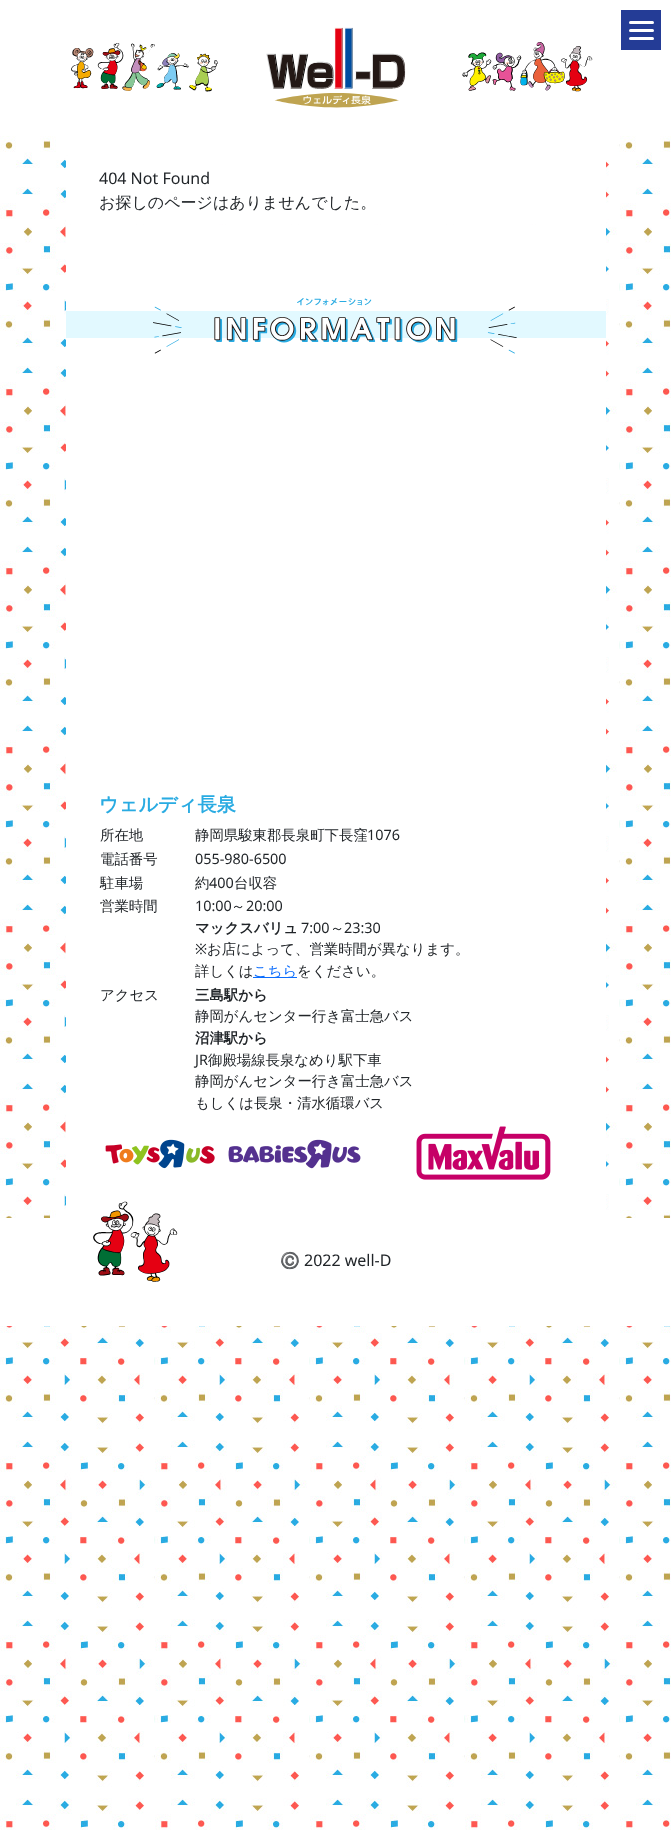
<svg xmlns="http://www.w3.org/2000/svg" width="671" height="1830" viewBox="0 0 671 1830">
  <rect width="100%" height="100%" fill="#fff"/>
  <image x="0" y="136" width="671" height="1694" href="img/1.png"/>
  <image x="71" y="43" width="147" height="49" href="img/2.png"/>
  <image x="266" y="27" width="140" height="81" href="img/3.png"/>
  <image x="462" y="42" width="131" height="50" href="img/4.png"/>
  <path d="M621 10h40v40H621z" fill="#243c96"/>
  <rect x="629" y="29" width="25" height="3" rx="1.5" fill="#fff"/>
  <rect x="629" y="21" width="25" height="3" rx="1.5" fill="#fff"/>
  <rect x="629" y="37" width="25" height="3" rx="1.5" fill="#fff"/>
  <path d="M80 136h513v20H80z" fill="#fff"/>
  <path d="M66 156h540v68H66z" fill="#fff"/>
  <path d="M66 225h540v86H66z" fill="#fff"/>
  <path d="M66 311h540v27H66z" fill="#e2f9ff"/>
  <path d="M66 338h540v17H66z" fill="#fff"/>
  <image x="153" y="298" width="364" height="56" href="img/5.png"/>
  <path d="M66 366h540v852H66z" fill="#fff"/>
  <path d="M253 977h44v1H253z" fill="#0d6efd"/>
  <image x="105" y="1139" width="256" height="30" href="img/6.png"/>
  <image x="416" y="1126" width="135" height="54" href="img/7.png"/>
  <path d="M0 1218h671v108H0z" fill="#fff"/>
  <image x="93" y="1201" width="85" height="81" href="img/8.png"/>
  <text x="99" y="184" font-family="Noto Sans" font-size="16" fill="#212529">404 Not Found</text>
  <text x="99" y="208" font-family="WenQuanYi Zen Hei" font-size="16" font-weight="500" fill="#212529">お探しのページはありませんでした。</text>
  <text x="99" y="811" font-family="WenQuanYi Zen Hei" font-size="19.25" font-weight="bold" fill="#29abe2">ウェルディ長泉</text>
  <g font-family="WenQuanYi Zen Hei" font-size="14.4" font-weight="500" fill="#212529">
    <text x="100" y="840">所在地</text>
    <text x="195" y="840">静岡県駿東郡長泉町下長窪</text>
  </g>
  <text x="367" y="840" font-family="Noto Sans" font-size="14.4" fill="#212529">1076</text>
  <text x="100" y="864" font-family="WenQuanYi Zen Hei" font-size="14.4" font-weight="500" fill="#212529">電話番号</text>
  <text x="195" y="864" font-family="Noto Sans" font-size="14.4" fill="#212529">055-980-6500</text>
  <g font-family="WenQuanYi Zen Hei" font-size="14.4" font-weight="500" fill="#212529">
    <text x="100" y="888">駐車場</text>
    <text x="195" y="888">約</text>
  </g>
  <text x="209" y="888" font-family="Noto Sans" font-size="14.4" fill="#212529">400</text>
  <g font-family="WenQuanYi Zen Hei" font-size="14.4" font-weight="500" fill="#212529">
    <text x="234" y="888">台収容</text>
    <text x="100" y="911">営業時間</text>
  </g>
  <text x="195" y="911" font-family="Noto Sans" font-size="14.4" fill="#212529">10:00</text>
  <text x="231" y="911" font-family="WenQuanYi Zen Hei" font-size="14.4" font-weight="500" fill="#212529">～</text>
  <text x="246" y="911" font-family="Noto Sans" font-size="14.4" fill="#212529">20:00</text>
  <text x="195" y="933" font-family="WenQuanYi Zen Hei" font-size="14.4" font-weight="bold" fill="#212529">マックスバリュ</text>
  <text x="301" y="933" font-family="Noto Sans" font-size="14.4" fill="#212529">7:00</text>
  <text x="330" y="933" font-family="WenQuanYi Zen Hei" font-size="14.4" font-weight="500" fill="#212529">～</text>
  <g font-family="Noto Sans" font-size="14.4" fill="#212529">
    <text x="344" y="933">23:30</text>
    <text x="195" y="954">※</text>
  </g>
  <g font-family="WenQuanYi Zen Hei" font-size="14.4" font-weight="500" fill="#212529">
    <text x="207" y="954">お店によって、営業時間が異なります。</text>
    <text x="195" y="976">詳しくは</text>
  </g>
  <text x="253" y="976" font-family="WenQuanYi Zen Hei" font-size="14.4" font-weight="500" fill="#0d6efd">こちら</text>
  <g font-family="WenQuanYi Zen Hei" font-size="14.4" font-weight="500" fill="#212529">
    <text x="297" y="976">をください。</text>
    <text x="100" y="1000">アクセス</text>
  </g>
  <text x="195" y="1000" font-family="WenQuanYi Zen Hei" font-size="14.4" font-weight="bold" fill="#212529">三島駅から</text>
  <text x="195" y="1021" font-family="WenQuanYi Zen Hei" font-size="14.4" font-weight="500" fill="#212529">静岡がんセンター行き富士急バス</text>
  <text x="195" y="1043" font-family="WenQuanYi Zen Hei" font-size="14.4" font-weight="bold" fill="#212529">沼津駅から</text>
  <text x="195" y="1065" font-family="Noto Sans" font-size="14.4" fill="#212529">JR</text>
  <g font-family="WenQuanYi Zen Hei" font-size="14.4" font-weight="500" fill="#212529">
    <text x="208" y="1065">御殿場線長泉なめり駅下車</text>
    <text x="195" y="1086">静岡がんセンター行き富士急バス</text>
    <text x="195" y="1108">もしくは長泉・清水循環バス</text>
  </g>
  <text x="280" y="1266" font-family="Noto Color Emoji" font-size="16" fill="#212529">©️</text>
  <text x="304" y="1266" font-family="Noto Sans" font-size="16" fill="#212529">2022 well-D</text>
</svg>
